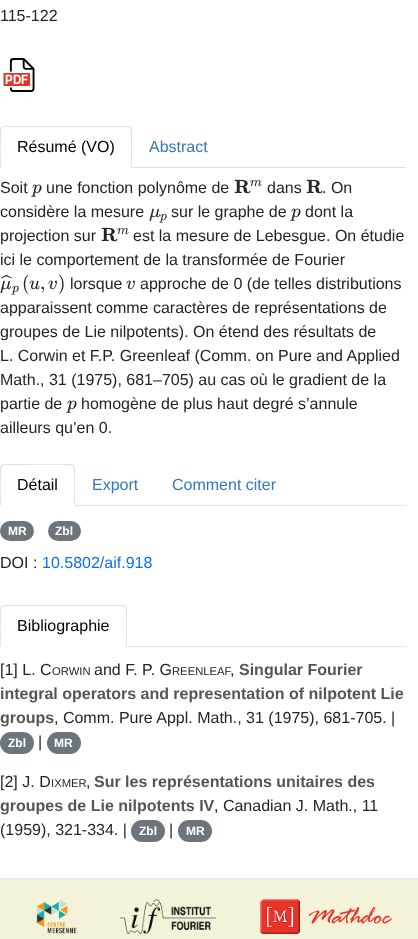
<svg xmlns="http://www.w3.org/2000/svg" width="418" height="939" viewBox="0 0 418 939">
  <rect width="100%" height="100%" fill="#fff"/>
  <image x="3" y="58" width="32" height="34" href="img/1.png"/>
  <path d="M132 167h274v1H132z" fill="#dee2e6"/>
  <path d="M4 126L1 127L2 128L4 127H128L130 128L131 127L128 126Z" fill="#dee2e6"/>
  <path d="M132 168V130C132 129 132 128 131 127L130 128C132 130 131 162 131 167Z" fill="#dee2e6"/>
  <path d="M132 168L131 167H1L0 168Z" fill="#fff"/>
  <path d="M0 168L1 167C1 162 0 130 2 128L1 127L0 130Z" fill="#dee2e6"/>
  <image x="31" y="184" width="11" height="13" href="img/2.png"/>
  <image x="234" y="179" width="17" height="15" href="img/3.png"/>
  <image x="250" y="180" width="12" height="7" href="img/4.png"/>
  <image x="306" y="179" width="17" height="15" href="img/3.png"/>
  <image x="149" y="208" width="12" height="14" href="img/5.png"/>
  <image x="159" y="214" width="8" height="9" href="img/6.png"/>
  <image x="290" y="208" width="11" height="13" href="img/2.png"/>
  <image x="101" y="227" width="17" height="15" href="img/3.png"/>
  <image x="117" y="228" width="12" height="7" href="img/4.png"/>
  <image x="0" y="274" width="12" height="5" href="img/7.png"/>
  <image x="0" y="280" width="12" height="14" href="img/5.png"/>
  <image x="11" y="286" width="8" height="9" href="img/8.png"/>
  <image x="29" y="280" width="11" height="10" href="img/9.png"/>
  <image x="48" y="280" width="9" height="10" href="img/10.png"/>
  <image x="126" y="280" width="9" height="10" href="img/10.png"/>
  <image x="66" y="400" width="11" height="13" href="img/2.png"/>
  <path d="M75 505h331v1H75z" fill="#dee2e6"/>
  <path d="M4 464L1 465L2 466L4 465H15C22 465 71 464 73 466L74 465L71 464Z" fill="#dee2e6"/>
  <path d="M75 506V468C75 467 74 466 74 465L73 466C75 468 74 500 74 505Z" fill="#dee2e6"/>
  <path d="M75 506L74 505H1L0 506Z" fill="#fff"/>
  <path d="M0 506L1 505C1 500 0 468 2 466L1 465L0 468Z" fill="#dee2e6"/>
  <rect y="521" width="34" height="20" rx="10" fill="#6c757d"/>
  <rect x="48" y="521" width="33" height="20" rx="10" fill="#6c757d"/>
  <path d="M127 646h279v1H127z" fill="#dee2e6"/>
  <path d="M4 605L1 606L2 607L4 606H123L125 607L126 606L123 605Z" fill="#dee2e6"/>
  <path d="M127 647V609C127 608 126 607 126 606L125 607C127 609 126 641 126 646Z" fill="#dee2e6"/>
  <path d="M127 647L126 646H1L0 647Z" fill="#fff"/>
  <path d="M0 647L1 646C1 641 0 609 2 607L1 606L0 609Z" fill="#dee2e6"/>
  <rect y="732" width="34" height="22" rx="11" fill="#6c757d"/>
  <rect x="47" y="732" width="34" height="22" rx="11" fill="#6c757d"/>
  <rect x="131" y="820" width="34" height="22" rx="11" fill="#6c757d"/>
  <rect x="178" y="820" width="34" height="22" rx="11" fill="#6c757d"/>
  <path d="M0 879h418v60H0z" fill="#f4f3d9"/>
  <path d="M0 878h418v1H0z" fill="#e7e7e7"/>
  <image x="36" y="899" width="41" height="35" href="img/11.png"/>
  <image x="120" y="899" width="96" height="35" href="img/12.png"/>
  <image x="260" y="899" width="132" height="35" href="img/13.png"/>
  <text x="0" y="21" font-family="Liberation Sans" font-size="16" fill="#212529">115-122</text>
  <text x="17" y="152" font-family="Liberation Sans" font-size="16" fill="#000">Résumé (VO)</text>
  <text x="149" y="152" font-family="Liberation Sans" font-size="16" fill="#337ab7">Abstract</text>
  <g font-family="Liberation Sans" font-size="16" fill="#212529">
    <text x="0" y="193">Soit</text>
    <text x="46" y="193">une fonction polynôme de</text>
    <text x="267" y="193">dans</text>
    <text x="322" y="193">. On</text>
    <text x="0" y="217">considère la mesure</text>
    <text x="171" y="217">sur le graphe de</text>
    <text x="305" y="217">dont la</text>
    <text x="0" y="241">projection sur</text>
    <text x="133" y="241">est la mesure de Lebesgue. On étudie</text>
    <text x="0" y="265">ici le comportement de la transformée de Fourier</text>
  </g>
  <g font-family="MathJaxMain" font-size="19" fill="#212529">
    <text x="22" y="289">(</text>
    <text x="40" y="289">,</text>
    <text x="58" y="289">)</text>
  </g>
  <g font-family="Liberation Sans" font-size="16" fill="#212529">
    <text x="70" y="289">lorsque</text>
    <text x="140" y="289">approche de 0 (de telles distributions</text>
    <text x="0" y="313">apparaissent comme caractères de représentations de</text>
    <text x="0" y="337">groupes de Lie nilpotents). On étend des résultats de</text>
    <text x="0" y="361">L. Corwin et F.P. Greenleaf (Comm. on Pure and Applied</text>
    <text x="0" y="385">Math., 31 (1975), 681–705) au cas où le gradient de la</text>
    <text x="0" y="409">partie de</text>
    <text x="81" y="409">homogène de plus haut degré s’annule</text>
    <text x="0" y="433">ailleurs qu’en 0.</text>
  </g>
  <text x="17" y="490" font-family="Liberation Sans" font-size="16" fill="#000">Détail</text>
  <g font-family="Liberation Sans" font-size="16" fill="#337ab7">
    <text x="92" y="490">Export</text>
    <text x="172" y="490">Comment citer</text>
  </g>
  <g font-family="Liberation Sans" font-size="12" font-weight="bold" fill="#fff">
    <text x="8" y="535">MR</text>
    <text x="55" y="535">Zbl</text>
  </g>
  <text x="0" y="568" font-family="Liberation Sans" font-size="16" fill="#212529">DOI :</text>
  <text x="42" y="568" font-family="Liberation Sans" font-size="16" fill="#0d6efd">10.5802/aif.918</text>
  <text x="17" y="631" font-family="Liberation Sans" font-size="16" fill="#000">Bibliographie</text>
  <text x="0" y="675" font-family="Liberation Sans" font-size="16" fill="#212529">[1] L. C</text>
  <text x="52" y="675" font-family="Liberation Sans" font-size="11.25" fill="#212529">ORWIN</text>
  <text x="94" y="675" font-family="Liberation Sans" font-size="16" fill="#212529">and F. P. G</text>
  <text x="172" y="675" font-family="Liberation Sans" font-size="11.25" fill="#212529">REENLEAF</text>
  <text x="239" y="675" font-family="Liberation Sans" font-size="16" font-weight="bold" fill="#555">Singular Fourier</text>
  <text x="230" y="675" font-family="Liberation Sans" font-size="16" fill="#212529">,</text>
  <g font-family="Liberation Sans" font-size="16" font-weight="bold" fill="#555">
    <text x="0" y="699">integral operators and representation of nilpotent Lie</text>
    <text x="0" y="723">groups</text>
  </g>
  <text x="54" y="723" font-family="Liberation Sans" font-size="16" fill="#212529">, Comm. Pure Appl. Math., 31 (1975), 681-705. |</text>
  <text x="8" y="747" font-family="Liberation Sans" font-size="12" font-weight="bold" fill="#fff">Zbl</text>
  <text x="38" y="747" font-family="Liberation Sans" font-size="16" fill="#212529">|</text>
  <text x="54" y="747" font-family="Liberation Sans" font-size="12" font-weight="bold" fill="#fff">MR</text>
  <text x="0" y="787" font-family="Liberation Sans" font-size="16" fill="#212529">[2] J. D</text>
  <text x="51" y="787" font-family="Liberation Sans" font-size="11.25" fill="#212529">IXMER</text>
  <text x="94" y="787" font-family="Liberation Sans" font-size="16" font-weight="bold" fill="#555">Sur les représentations unitaires des</text>
  <text x="86" y="787" font-family="Liberation Sans" font-size="16" fill="#212529">,</text>
  <text x="0" y="811" font-family="Liberation Sans" font-size="16" font-weight="bold" fill="#555">groupes de Lie nilpotents IV</text>
  <g font-family="Liberation Sans" font-size="16" fill="#212529">
    <text x="214" y="811">, Canadian J. Math., 11</text>
    <text x="0" y="835">(1959), 321-334. |</text>
  </g>
  <text x="139" y="835" font-family="Liberation Sans" font-size="12" font-weight="bold" fill="#fff">Zbl</text>
  <text x="169" y="835" font-family="Liberation Sans" font-size="16" fill="#212529">|</text>
  <text x="186" y="835" font-family="Liberation Sans" font-size="12" font-weight="bold" fill="#fff">MR</text>
</svg>
